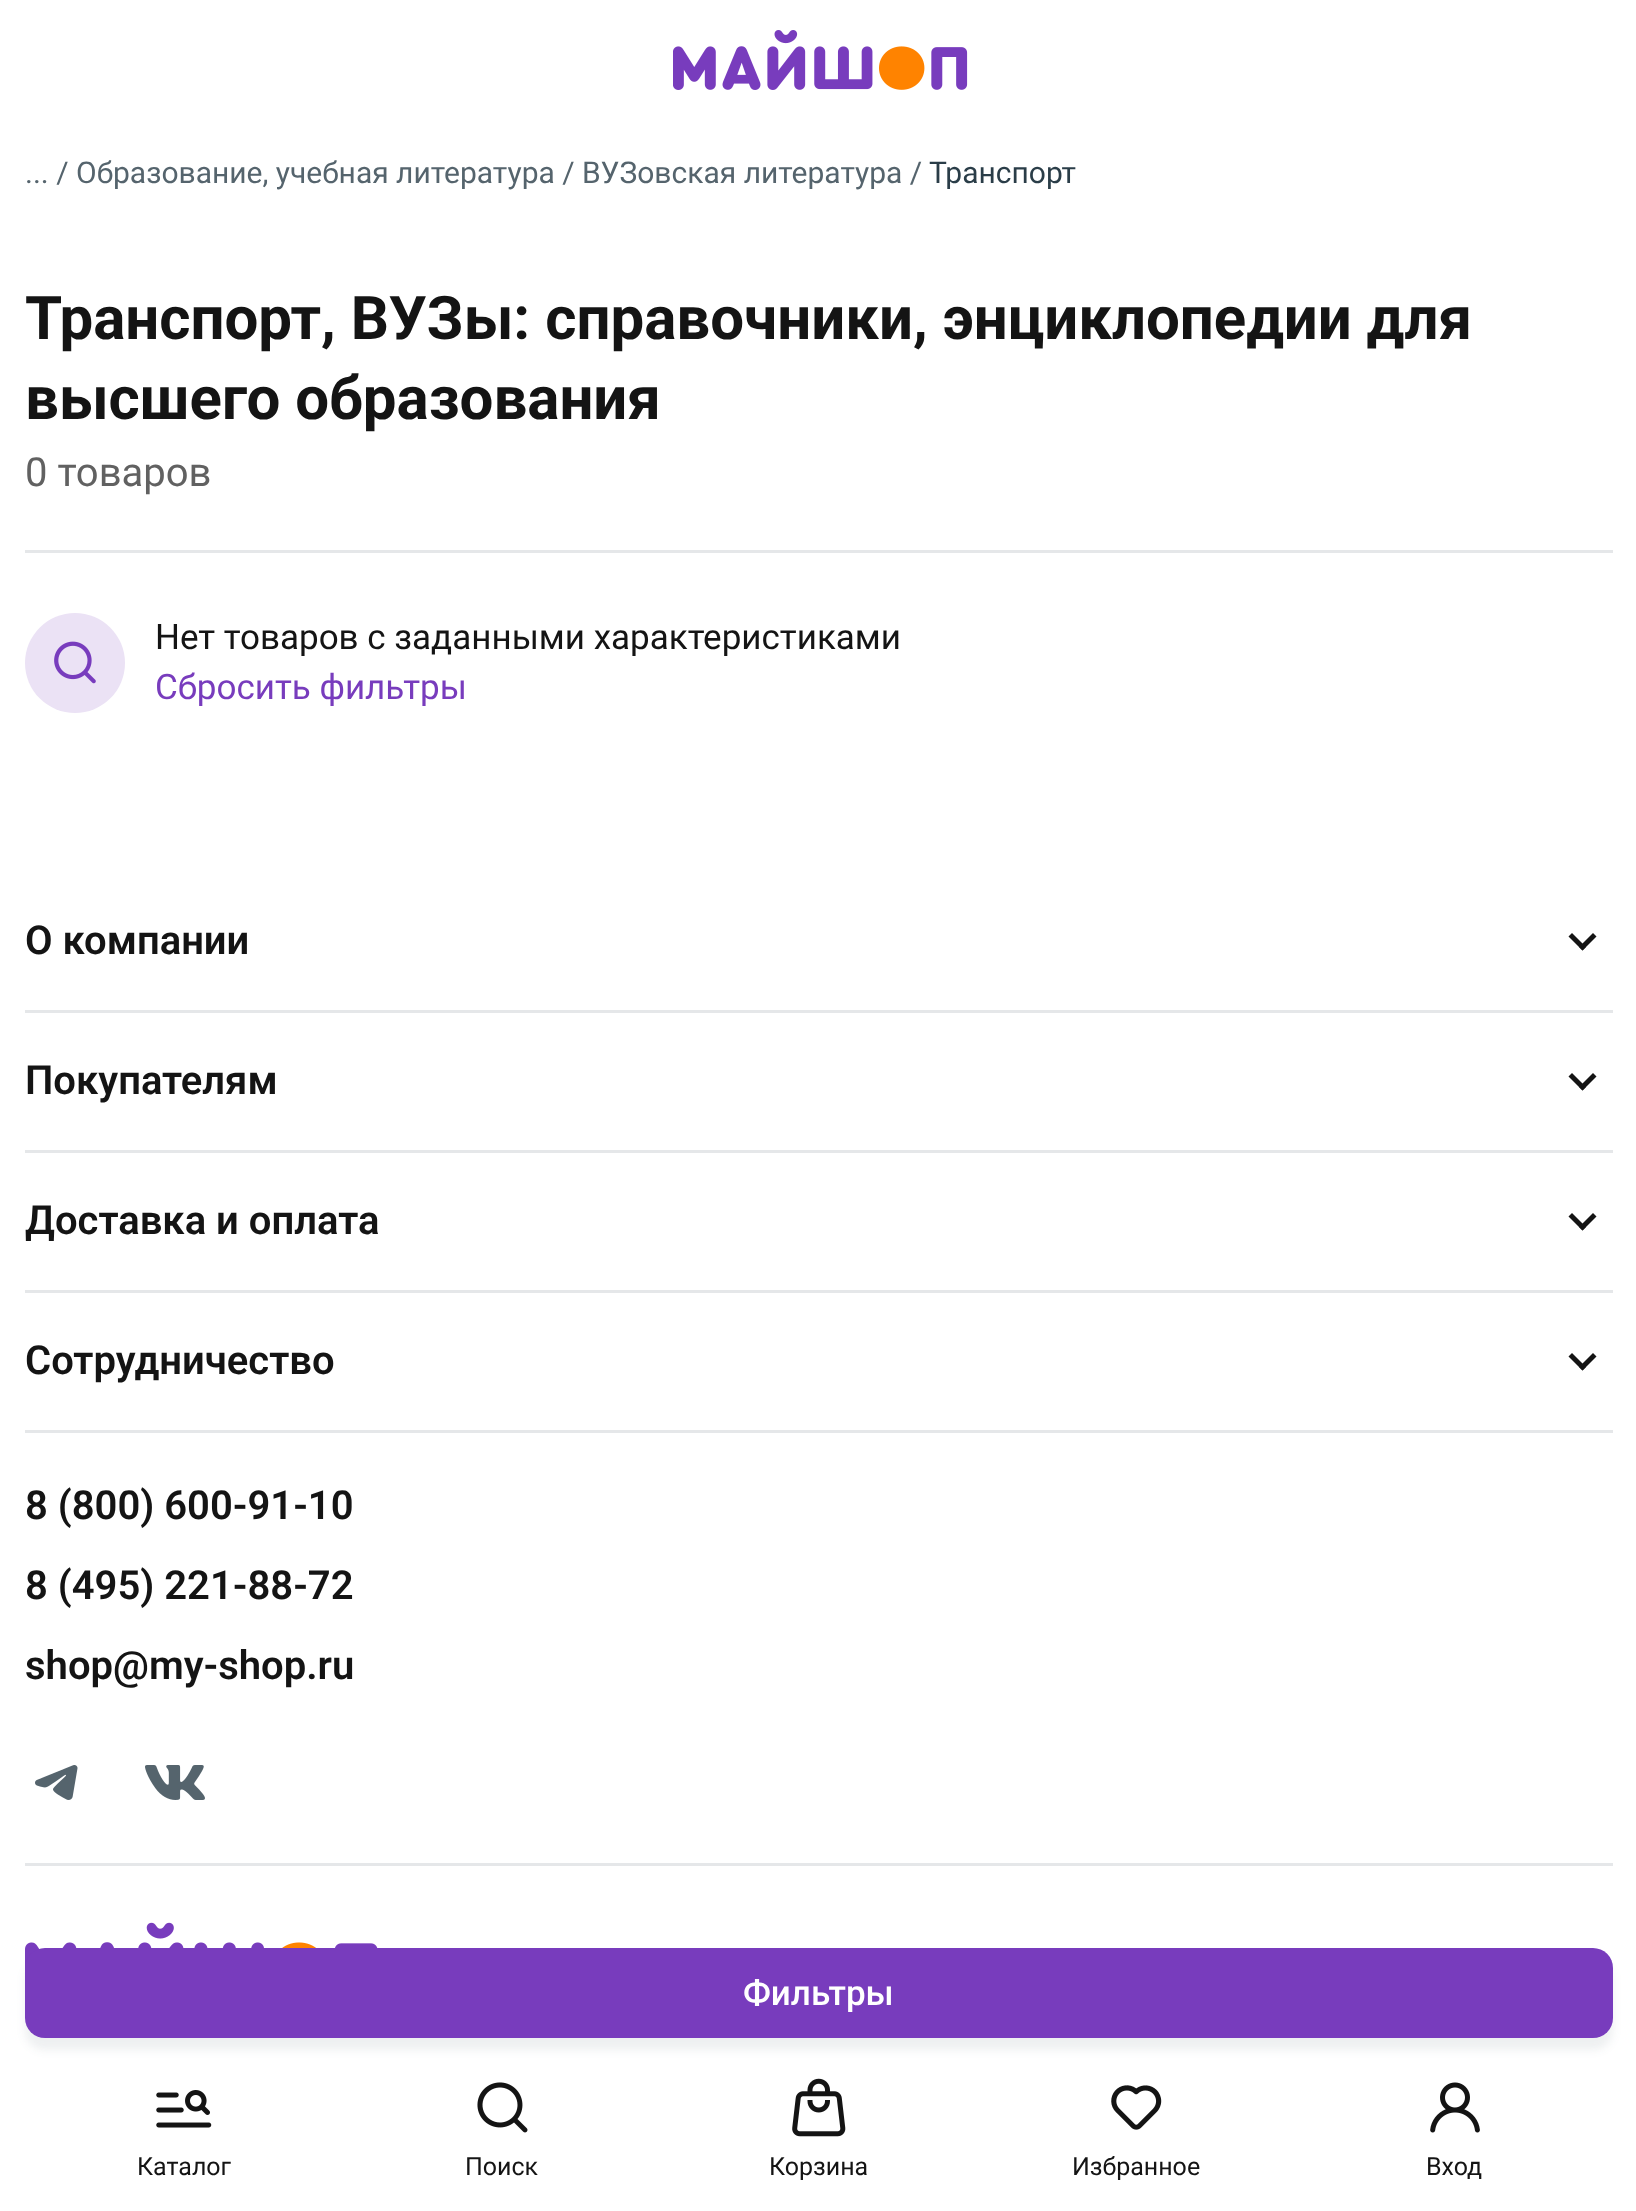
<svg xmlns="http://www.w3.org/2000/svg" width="1636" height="2211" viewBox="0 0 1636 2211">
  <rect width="100%" height="100%" fill="#fff"/>
  <path d="M25 550h1588v3H25z" fill="#e5e7e9"/>
  <circle cx="75" cy="663" r="50" fill="#ebe2f5"/>
  <image x="54" y="641" width="42" height="43" href="img/1.png"/>
  <image x="25" y="1922" width="353" height="46" href="img/4.png"/>
  <rect x="25" y="1960" width="1588" height="90" rx="20" fill="#2a3d4814" filter="blur(4px)"/>
  <rect x="25" y="1948" width="1588" height="90" rx="20" fill="#783cbd"/>
  <path d="M25 1010h1588v3H25z" fill="#e5e7e9"/>
  <path d="M1596.5 936.5L1582.5 950.5L1579 947L1593 933Z" fill="#141414"/>
  <path d="M1586 947L1582.5 950.5L1568.5 936.5L1572 933Z" fill="#141414"/>
  <path d="M25 1150h1588v3H25z" fill="#e5e7e9"/>
  <path d="M1596.5 1076.5L1582.5 1090.5L1579 1087L1593 1073Z" fill="#141414"/>
  <path d="M1586 1087L1582.5 1090.5L1568.5 1076.5L1572 1073Z" fill="#141414"/>
  <path d="M25 1290h1588v3H25z" fill="#e5e7e9"/>
  <path d="M1596.5 1216.5L1582.5 1230.5L1579 1227L1593 1213Z" fill="#141414"/>
  <path d="M1586 1227L1582.5 1230.5L1568.5 1216.5L1572 1213Z" fill="#141414"/>
  <path d="M25 1430h1588v3H25z" fill="#e5e7e9"/>
  <path d="M1596.5 1356.5L1582.5 1370.5L1579 1367L1593 1353Z" fill="#141414"/>
  <path d="M1586 1367L1582.5 1370.5L1568.5 1356.5L1572 1353Z" fill="#141414"/>
  <image x="35" y="1765" width="43" height="35" href="img/2.png"/>
  <image x="145" y="1765" width="60" height="35" href="img/3.png"/>
  <path d="M25 1863h1588v3H25z" fill="#e5e7e9"/>
  <image x="673" y="30" width="295" height="60" href="img/5.png"/>
  <image x="156" y="2090" width="56" height="38" href="img/6.png"/>
  <image x="477" y="2082" width="51" height="51" href="img/7.png"/>
  <image x="792" y="2078" width="54" height="59" href="img/8.png"/>
  <image x="1111" y="2085" width="51" height="45" href="img/9.png"/>
  <image x="1430" y="2082" width="50" height="51" href="img/10.png"/>
  <text x="25" y="183" font-family="Roboto" font-size="30" fill="#55646d">... / Образование, учебная литература / ВУЗовская литература /</text>
  <text x="929" y="183" font-family="Roboto" font-size="30" fill="#2a3d48">Транспорт</text>
  <g font-family="Roboto" font-size="60" font-weight="bold" fill="#141414">
    <text x="25" y="339">Транспорт, ВУЗы: справочники, энциклопедии для</text>
    <text x="25" y="419">высшего образования</text>
  </g>
  <text x="25" y="486" font-family="Roboto" font-size="40" fill="#616161">0 товаров</text>
  <text x="155" y="649" font-family="Roboto" font-size="35" fill="#141414">Нет товаров с заданными характеристиками</text>
  <text x="155" y="699" font-family="Roboto" font-size="35" fill="#783cbd">Сбросить фильтры</text>
  <text x="743" y="2005" font-family="Roboto" font-size="35" font-weight="500" fill="#fff">Фильтры</text>
  <g font-family="Roboto" font-size="40" font-weight="600" fill="#141414">
    <text x="25" y="954">О компании</text>
    <text x="25" y="1094">Покупателям</text>
    <text x="25" y="1234">Доставка и оплата</text>
    <text x="25" y="1374">Сотрудничество</text>
    <text x="25" y="1519">8 (800) 600-91-10</text>
    <text x="25" y="1599">8 (495) 221-88-72</text>
    <text x="25" y="1679">shop@my-shop.ru</text>
  </g>
  <g font-family="Roboto" font-size="25" fill="#141414">
    <text x="137" y="2175">Каталог</text>
    <text x="465" y="2175">Поиск</text>
    <text x="769" y="2175">Корзина</text>
    <text x="1072" y="2175">Избранное</text>
    <text x="1426" y="2175">Вход</text>
  </g>
</svg>
